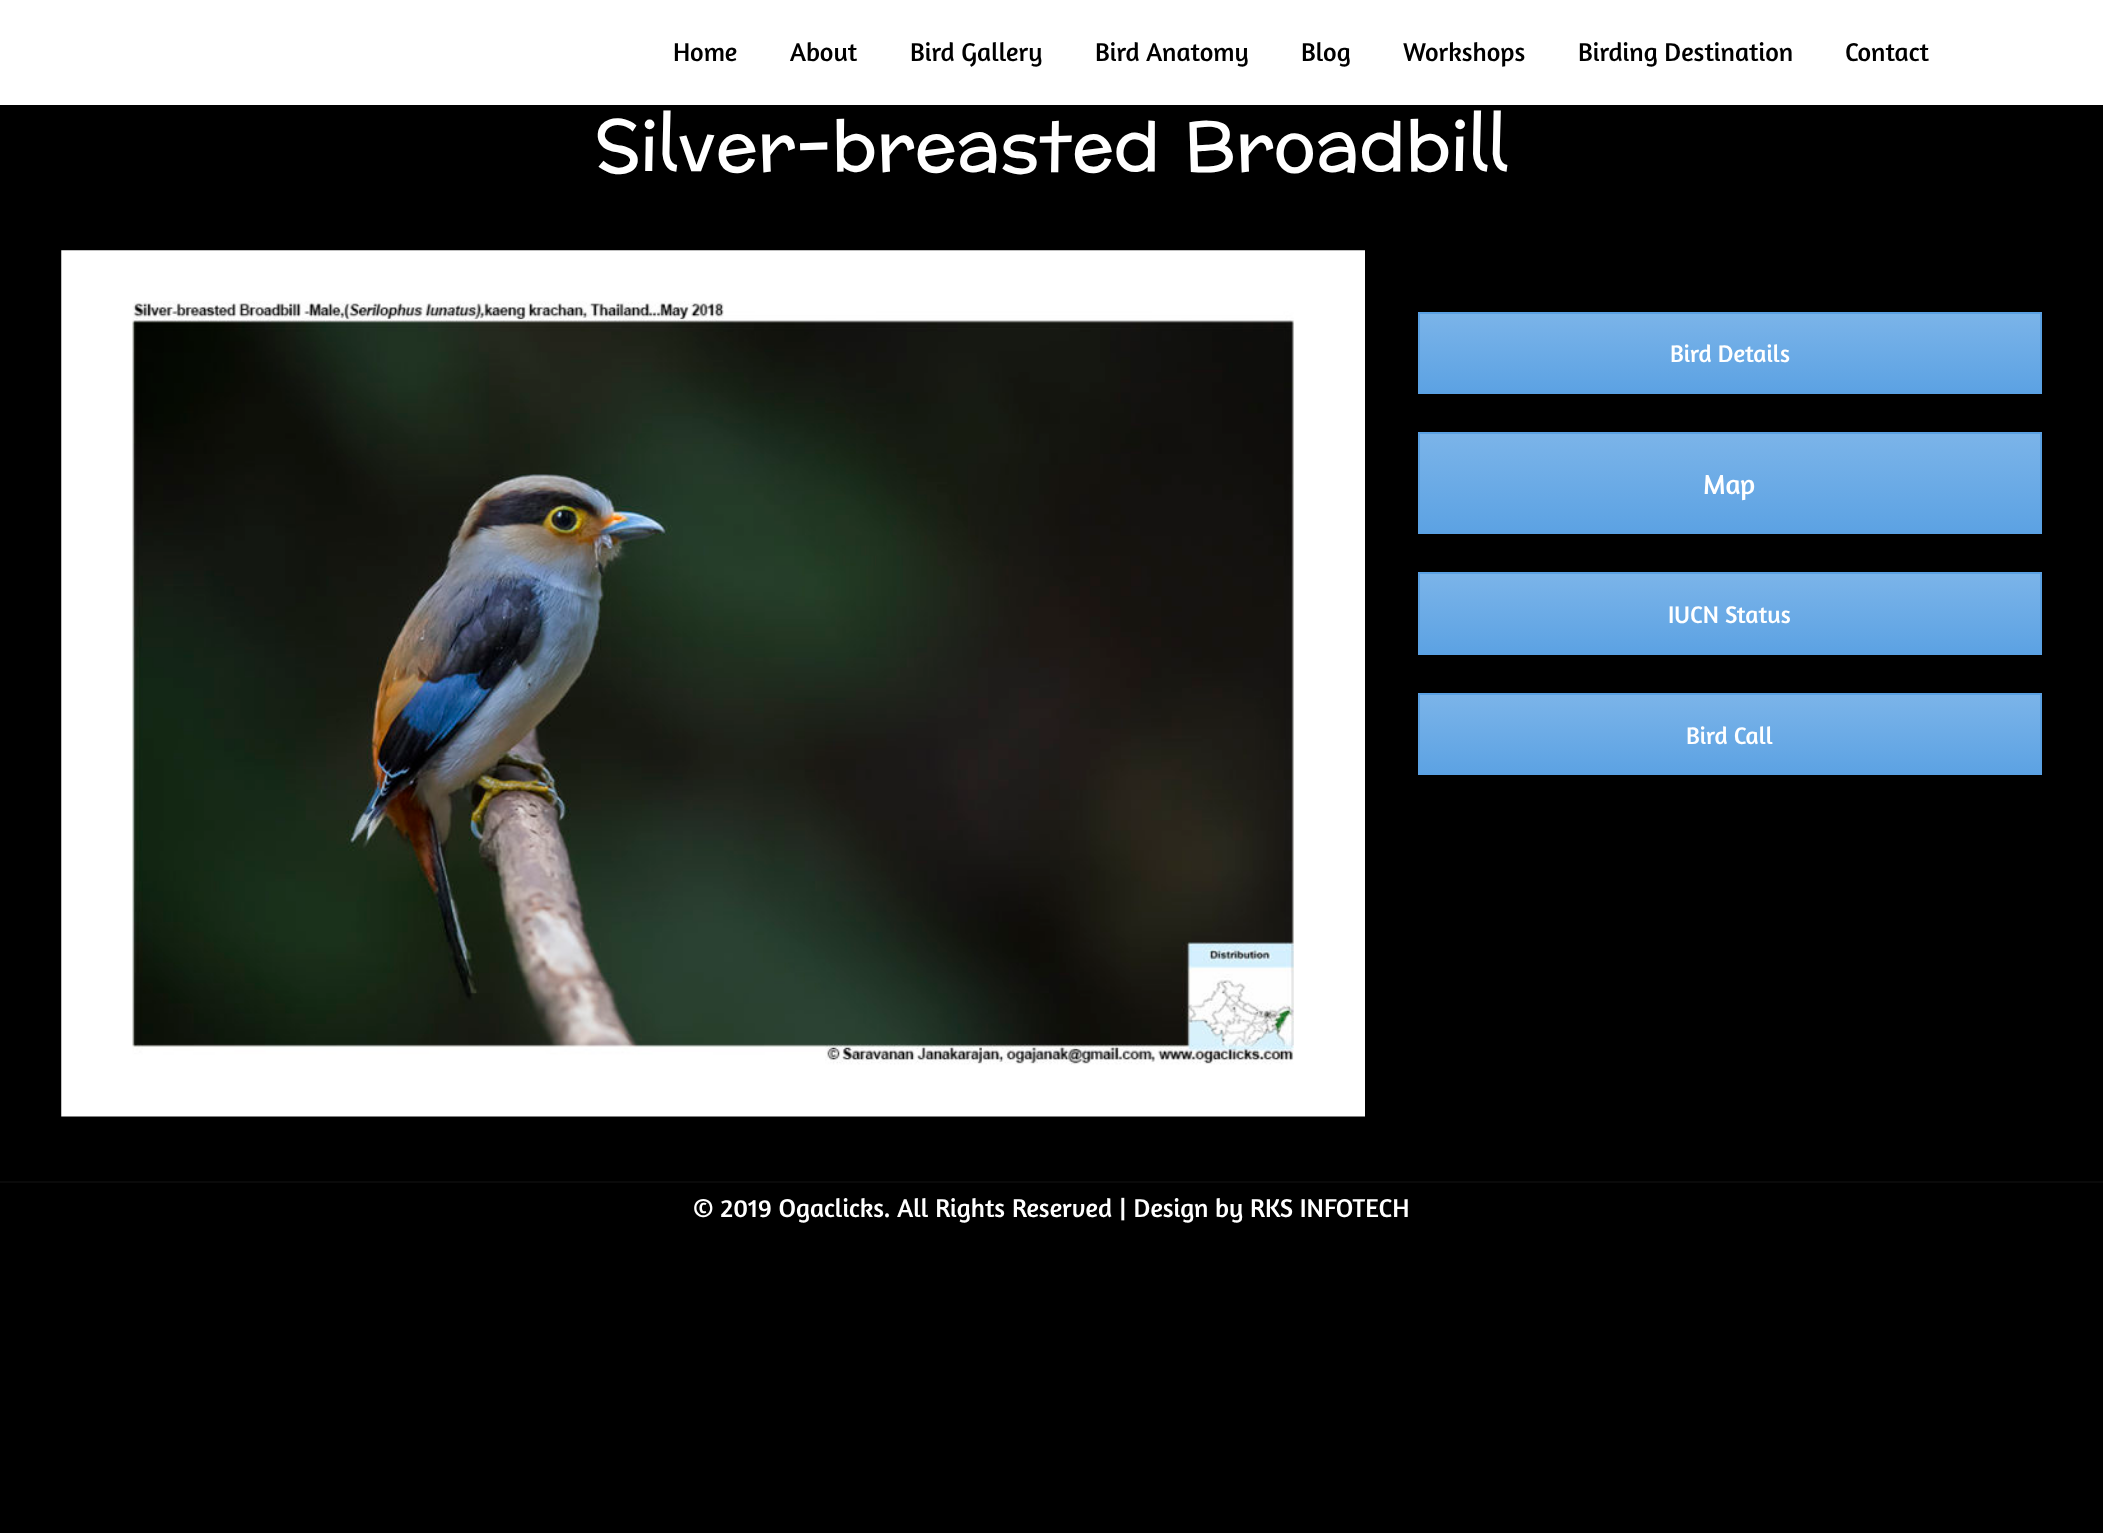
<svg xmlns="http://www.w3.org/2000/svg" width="2103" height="1533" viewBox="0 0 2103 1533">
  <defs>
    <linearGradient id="g1" gradientUnits="userSpaceOnUse" x1="1730" y1="313" x2="1730" y2="392"><stop offset="0" stop-color="#7bb4e9"/><stop offset="1" stop-color="#5ca2e3"/></linearGradient>
    <linearGradient id="g2" gradientUnits="userSpaceOnUse" x1="1730" y1="434" x2="1730" y2="532"><stop offset="0" stop-color="#7bb4e9"/><stop offset="1" stop-color="#5ca2e3"/></linearGradient>
    <linearGradient id="g3" gradientUnits="userSpaceOnUse" x1="1730" y1="574" x2="1730" y2="653"><stop offset="0" stop-color="#7bb4e9"/><stop offset="1" stop-color="#5ca2e3"/></linearGradient>
    <linearGradient id="g4" gradientUnits="userSpaceOnUse" x1="1730" y1="695" x2="1730" y2="774"><stop offset="0" stop-color="#7bb4e9"/><stop offset="1" stop-color="#5ca2e3"/></linearGradient>
  </defs>
  <rect width="100%" height="100%" fill="#000"/>
  <path d="M0 0h2103v105H0z" fill="#fff"/>
  <image x="61" y="250" width="1304" height="867" href="img/1.png"/>
  <path d="M1420 314h620v78H1420z" fill="url(#g1)"/>
  <path d="M1419 313h622v80H1419z" fill="none" stroke="#5aa1e3" stroke-width="2"/>
  <path d="M1420 434h620v98H1420z" fill="url(#g2)"/>
  <path d="M1419 433h622v100H1419z" fill="none" stroke="#5aa1e3" stroke-width="2"/>
  <path d="M1420 574h620v79H1420z" fill="url(#g3)"/>
  <path d="M1419 573h622v81H1419z" fill="none" stroke="#5aa1e3" stroke-width="2"/>
  <path d="M1420 695h620v78H1420z" fill="url(#g4)"/>
  <path d="M1419 694h622v80H1419z" fill="none" stroke="#5aa1e3" stroke-width="2"/>
  <path d="M0 1181h2103v2H0z" fill="#0a0a0a"/>
  <g font-family="Amaranth" font-size="26.25" fill="#000">
    <text x="673" y="61">Home</text>
    <text x="790" y="61">About</text>
    <text x="910" y="61">Bird Gallery</text>
    <text x="1095" y="61">Bird Anatomy</text>
    <text x="1301" y="61">Blog</text>
    <text x="1403" y="61">Workshops</text>
    <text x="1578" y="61">Birding Destination</text>
    <text x="1845" y="61">Contact</text>
  </g>
  <text x="595" y="170" font-family="Preahvihear" font-size="70" fill="#fff">Silver-breasted Broadbill</text>
  <text x="1670" y="362" font-family="Amaranth" font-size="24.5" fill="#fff">Bird Details</text>
  <text x="1703" y="494" font-family="Amaranth" font-size="28" fill="#fff">Map</text>
  <g font-family="Amaranth" font-size="24.5" fill="#fff">
    <text x="1668" y="623">IUCN Status</text>
    <text x="1686" y="744">Bird Call</text>
  </g>
  <text x="693" y="1217" font-family="Amaranth" font-size="26.25" fill="#fff">© 2019 Ogaclicks. All Rights Reserved | Design by RKS INFOTECH</text>
</svg>
